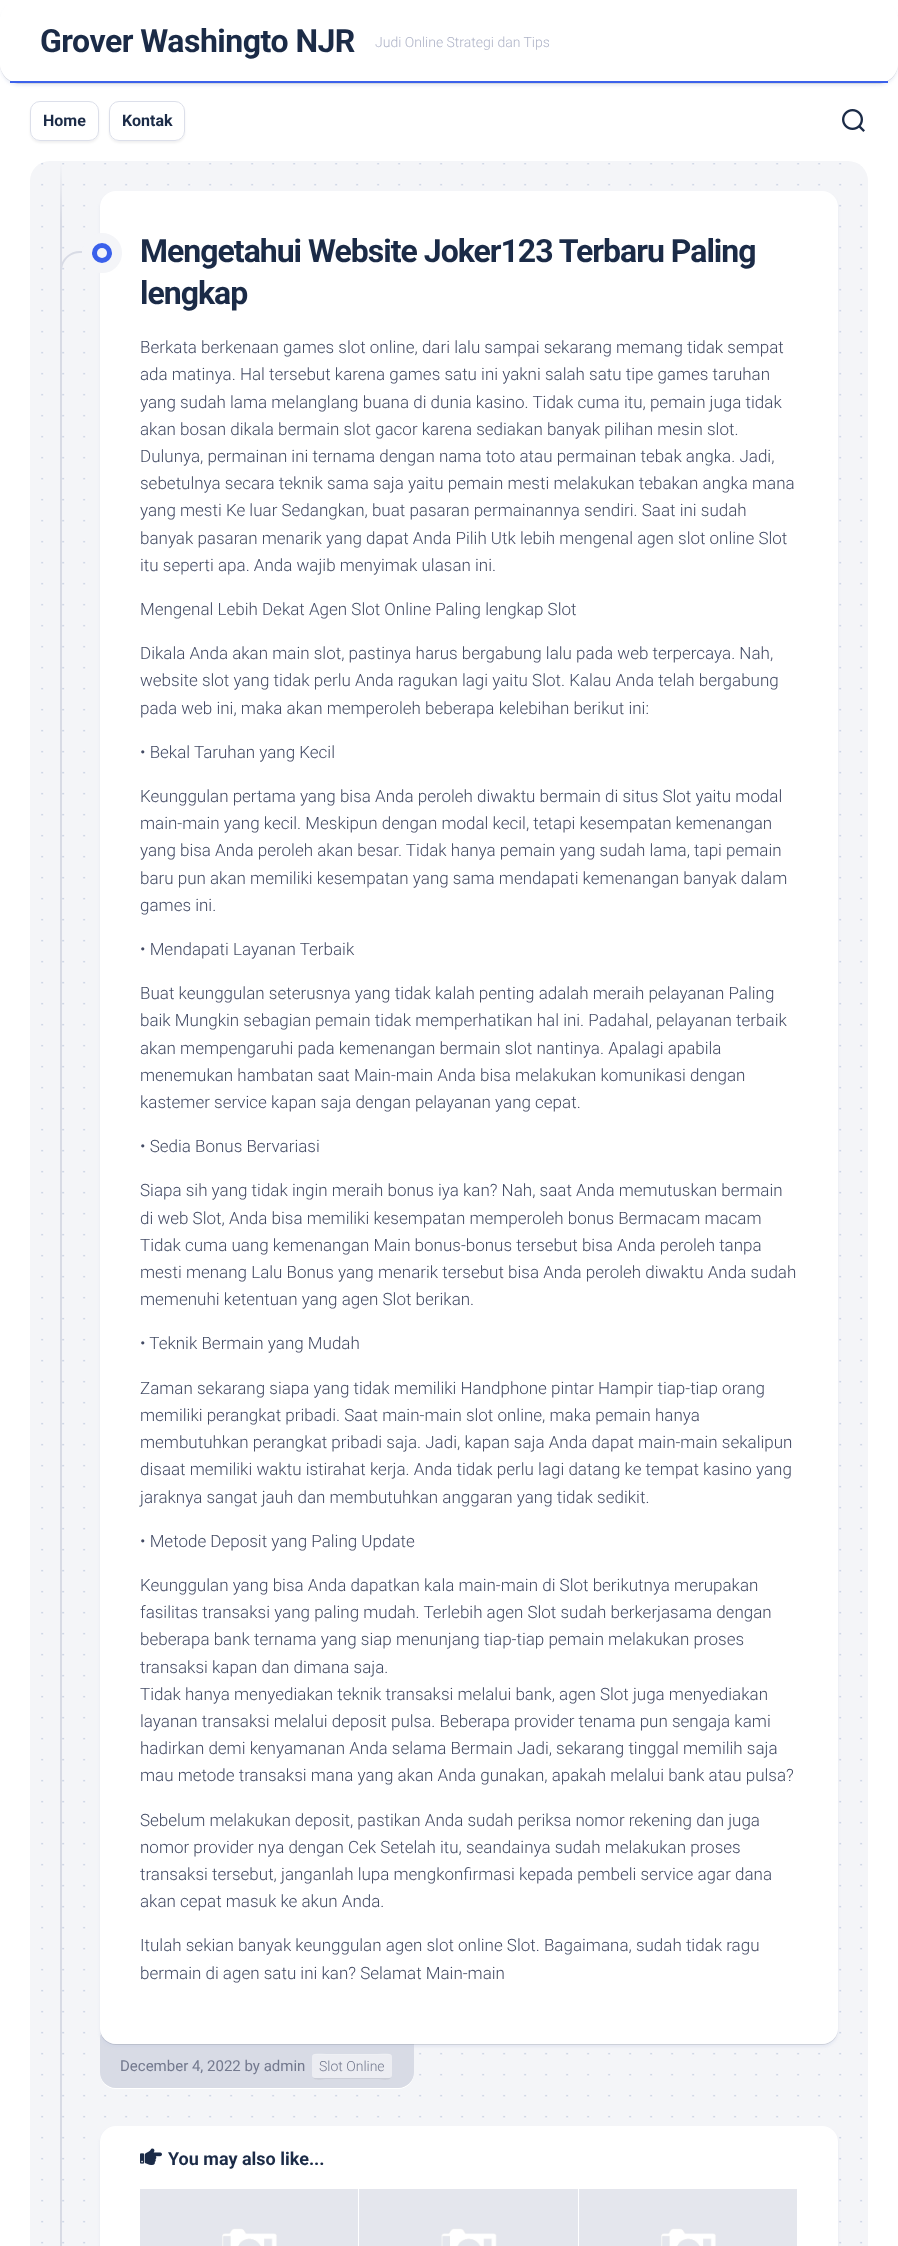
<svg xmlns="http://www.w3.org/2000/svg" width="898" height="2246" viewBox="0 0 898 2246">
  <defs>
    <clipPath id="clip1"><path d="M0 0H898V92H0ZM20 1H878C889 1 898 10 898 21V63C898 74 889 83 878 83H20C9 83 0 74 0 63V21C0 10 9 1 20 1Z" clip-rule="evenodd"/></clipPath>
    <clipPath id="clip2"><path d="M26 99H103V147H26ZM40 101H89C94.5 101 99 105.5 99 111V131C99 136.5 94.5 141 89 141H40C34.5 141 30 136.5 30 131V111C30 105.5 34.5 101 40 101Z" clip-rule="evenodd"/></clipPath>
    <clipPath id="clip3"><path d="M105 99H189V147H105ZM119 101H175C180.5 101 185 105.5 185 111V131C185 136.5 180.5 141 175 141H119C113.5 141 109 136.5 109 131V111C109 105.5 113.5 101 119 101Z" clip-rule="evenodd"/></clipPath>
    <linearGradient id="g1" gradientUnits="userSpaceOnUse" x1="61" y1="221" x2="61" y2="161"><stop offset="0" stop-color="#d8dbe5"/><stop offset="1" stop-color="#f4f5f8"/></linearGradient>
  </defs>
  <rect width="100%" height="100%" fill="#fff"/>
  <g clip-path="url(#clip1)">
    <rect y="4" width="898" height="82" rx="20" fill="#c1cbe64d" filter="blur(1.5px)"/>
  </g>
  <path d="M0 63V64C0 75 9 84 20 84H878C889 84 898 75 898 64V63C898 74 889 83 878 83H20C9 83 0 74 0 63Z" fill="#0000001a"/>
  <rect y="1" width="898" height="82" rx="20" fill="#ffffffe6"/>
  <path d="M10 81h878v2H10z" fill="#3b61eb"/>
  <g clip-path="url(#clip2)">
    <rect x="30" y="103" width="69" height="40" rx="10" fill="#0000000f" filter="blur(1px)"/>
  </g>
  <rect x="30.5" y="101.5" width="68" height="39" rx="9.5" fill="none" stroke="#dcdfea"/>
  <g clip-path="url(#clip3)">
    <rect x="109" y="103" width="76" height="40" rx="10" fill="#0000000f" filter="blur(1px)"/>
  </g>
  <rect x="109.5" y="101.5" width="75" height="39" rx="9.5" fill="none" stroke="#dcdfea"/>
  <image x="842" y="109" width="23" height="23" href="img/1.png"/>
  <rect x="30" y="161" width="838" height="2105" rx="20" fill="#f4f5f8"/>
  <image x="41" y="163" width="822" height="2081" href="img/2.png"/>
  <path d="M60 221h2v2025H60z" fill="#d8dbe5"/>
  <path d="M60 161h2v60H60z" fill="url(#g1)"/>
  <path d="M80 251H82V273H60V271C60 260 69 251 80 251ZM80 253H82V273H62V271C62 261 70 253 80 253Z" fill="#d8dbe5" fill-rule="evenodd"/>
  <path d="M100 2072V2073C100 2082 107 2089 116 2089H398C407 2089 414 2082 414 2073V2072C414 2081 407 2088 398 2088H116C107 2088 100 2081 100 2072Z" fill="#fff"/>
  <rect x="100" y="2024" width="314" height="64" rx="16" fill="#d8dbe5"/>
  <path d="M116 2025H398C407 2025 414 2032 414 2041V2040C414 2031 407 2024 398 2024H116C107 2024 100 2031 100 2040V2041C100 2032 107 2025 116 2025Z" fill="#0000001a"/>
  <rect x="100" y="194" width="738" height="1853" rx="16" fill="#c1cbe64d" filter="blur(1.5px)"/>
  <path d="M100 2028V2029C100 2038 107 2045 116 2045H822C831 2045 838 2038 838 2029V2028C838 2037 831 2044 822 2044H116C107 2044 100 2037 100 2028Z" fill="#0000001a"/>
  <rect x="100" y="191" width="738" height="1853" rx="16" fill="#fff"/>
  <circle cx="102" cy="253" r="15" fill="#3b61eb" stroke="#f4f5f8" stroke-width="10"/>
  <circle cx="102" cy="253" r="5" fill="#f4f5f8"/>
  <path d="M312 2075C312 2082 323 2079 327 2079H377C381 2079 392 2082 392 2075C392 2077 391 2078 389 2078H315C313 2078 312 2077 312 2075Z" fill="#cbced7"/>
  <rect x="312" y="2054" width="80" height="24" rx="3" fill="#ffffff80"/>
  <path d="M315 2055H389C391 2055 392 2056 392 2058C392 2051 381 2054 377 2054H327C323 2054 312 2051 312 2058C312 2056 313 2055 315 2055Z" fill="#ffffff33"/>
  <rect x="100" y="2129" width="738" height="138" rx="16" fill="#c1cbe64d" filter="blur(1.5px)"/>
  <rect x="100" y="2126" width="738" height="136" rx="16" fill="#fff"/>
  <image x="140" y="2148" width="22" height="17" href="img/3.png"/>
  <image x="140" y="2189" width="218" height="57" href="img/4.png"/>
  <image x="359" y="2189" width="219" height="57" href="img/5.png"/>
  <image x="579" y="2189" width="218" height="57" href="img/4.png"/>
  <text x="40" y="52" font-family="Roboto" font-size="32" font-weight="bold" letter-spacing="-0.5" fill="#1b2b47">Grover Washingto NJR</text>
  <text x="375" y="47" font-family="Roboto" font-size="14" font-weight="300" fill="#aeb3c7">Judi Online Strategi dan Tips</text>
  <g font-family="Roboto" font-size="16" font-weight="bold" fill="#1b2b47">
    <text x="43" y="126">Home</text>
    <text x="122" y="126">Kontak</text>
  </g>
  <g font-family="Roboto" font-size="32" font-weight="bold" letter-spacing="-1" fill="#1b2b47">
    <text x="140" y="262">Mengetahui Website Joker123 Terbaru Paling</text>
    <text x="140" y="304">lengkap</text>
  </g>
  <g font-family="Roboto" font-size="17" font-weight="300" fill="#434b64">
    <text x="140" y="353">Berkata berkenaan games slot online, dari lalu sampai sekarang memang tidak sempat</text>
    <text x="140" y="380">ada matinya. Hal tersebut karena games satu ini yakni salah satu tipe games taruhan</text>
    <text x="140" y="408">yang sudah lama melanglang buana di dunia kasino. Tidak cuma itu, pemain juga tidak</text>
    <text x="140" y="435">akan bosan dikala bermain slot gacor karena sediakan banyak pilihan mesin slot.</text>
    <text x="140" y="462">Dulunya, permainan ini ternama dengan nama toto atau permainan tebak angka. Jadi,</text>
    <text x="140" y="489">sebetulnya secara teknik sama saja yaitu pemain mesti melakukan tebakan angka mana</text>
    <text x="140" y="516">yang mesti Ke luar Sedangkan, buat pasaran permainannya sendiri. Saat ini sudah</text>
    <text x="140" y="544">banyak pasaran menarik yang dapat Anda Pilih Utk lebih mengenal agen slot online Slot</text>
    <text x="140" y="571">itu seperti apa. Anda wajib menyimak ulasan ini.</text>
    <text x="140" y="615">Mengenal Lebih Dekat Agen Slot Online Paling lengkap Slot</text>
    <text x="140" y="659">Dikala Anda akan main slot, pastinya harus bergabung lalu pada web terpercaya. Nah,</text>
    <text x="140" y="686">website slot yang tidak perlu Anda ragukan lagi yaitu Slot. Kalau Anda telah bergabung</text>
    <text x="140" y="714">pada web ini, maka akan memperoleh beberapa kelebihan berikut ini:</text>
    <text x="140" y="758">• Bekal Taruhan yang Kecil</text>
    <text x="140" y="802">Keunggulan pertama yang bisa Anda peroleh diwaktu bermain di situs Slot yaitu modal</text>
    <text x="140" y="829">main-main yang kecil. Meskipun dengan modal kecil, tetapi kesempatan kemenangan</text>
    <text x="140" y="856">yang bisa Anda peroleh akan besar. Tidak hanya pemain yang sudah lama, tapi pemain</text>
    <text x="140" y="884">baru pun akan memiliki kesempatan yang sama mendapati kemenangan banyak dalam</text>
    <text x="140" y="911">games ini.</text>
    <text x="140" y="955">• Mendapati Layanan Terbaik</text>
    <text x="140" y="999">Buat keunggulan seterusnya yang tidak kalah penting adalah meraih pelayanan Paling</text>
    <text x="140" y="1026">baik Mungkin sebagian pemain tidak memperhatikan hal ini. Padahal, pelayanan terbaik</text>
    <text x="140" y="1054">akan mempengaruhi pada kemenangan bermain slot nantinya. Apalagi apabila</text>
    <text x="140" y="1081">menemukan hambatan saat Main-main Anda bisa melakukan komunikasi dengan</text>
    <text x="140" y="1108">kastemer service kapan saja dengan pelayanan yang cepat.</text>
    <text x="140" y="1152">• Sedia Bonus Bervariasi</text>
    <text x="140" y="1196">Siapa sih yang tidak ingin meraih bonus iya kan? Nah, saat Anda memutuskan bermain</text>
    <text x="140" y="1224">di web Slot, Anda bisa memiliki kesempatan memperoleh bonus Bermacam macam</text>
    <text x="140" y="1251">Tidak cuma uang kemenangan Main bonus-bonus tersebut bisa Anda peroleh tanpa</text>
    <text x="140" y="1278">mesti menang Lalu Bonus yang menarik tersebut bisa Anda peroleh diwaktu Anda sudah</text>
    <text x="140" y="1305">memenuhi ketentuan yang agen Slot berikan.</text>
    <text x="140" y="1349">• Teknik Bermain yang Mudah</text>
    <text x="140" y="1394">Zaman sekarang siapa yang tidak memiliki Handphone pintar Hampir tiap-tiap orang</text>
    <text x="140" y="1421">memiliki perangkat pribadi. Saat main-main slot online, maka pemain hanya</text>
    <text x="140" y="1448">membutuhkan perangkat pribadi saja. Jadi, kapan saja Anda dapat main-main sekalipun</text>
    <text x="140" y="1475">disaat memiliki waktu istirahat kerja. Anda tidak perlu lagi datang ke tempat kasino yang</text>
    <text x="140" y="1503">jaraknya sangat jauh dan membutuhkan anggaran yang tidak sedikit.</text>
    <text x="140" y="1547">• Metode Deposit yang Paling Update</text>
    <text x="140" y="1591">Keunggulan yang bisa Anda dapatkan kala main-main di Slot berikutnya merupakan</text>
    <text x="140" y="1618">fasilitas transaksi yang paling mudah. Terlebih agen Slot sudah berkerjasama dengan</text>
    <text x="140" y="1645">beberapa bank ternama yang siap menunjang tiap-tiap pemain melakukan proses</text>
    <text x="140" y="1673">transaksi kapan dan dimana saja.</text>
    <text x="140" y="1700">Tidak hanya menyediakan teknik transaksi melalui bank, agen Slot juga menyediakan</text>
    <text x="140" y="1727">layanan transaksi melalui deposit pulsa. Beberapa provider tenama pun sengaja kami</text>
    <text x="140" y="1754">hadirkan demi kenyamanan Anda selama Bermain Jadi, sekarang tinggal memilih saja</text>
    <text x="140" y="1781">mau metode transaksi mana yang akan Anda gunakan, apakah melalui bank atau pulsa?</text>
    <text x="140" y="1826">Sebelum melakukan deposit, pastikan Anda sudah periksa nomor rekening dan juga</text>
    <text x="140" y="1853">nomor provider nya dengan Cek Setelah itu, seandainya sudah melakukan proses</text>
    <text x="140" y="1880">transaksi tersebut, janganlah lupa mengkonfirmasi kepada pembeli service agar dana</text>
    <text x="140" y="1907">akan cepat masuk ke akun Anda.</text>
    <text x="140" y="1951">Itulah sekian banyak keunggulan agen slot online Slot. Bagaimana, sudah tidak ragu</text>
    <text x="140" y="1979">bermain di agen satu ini kan? Selamat Main-main</text>
  </g>
  <text x="120" y="2071" font-family="Roboto" font-size="15" fill="#73798e">December 4, 2022 by admin</text>
  <text x="319" y="2071" font-family="Roboto" font-size="14" font-weight="300" fill="#73798e">Slot Online</text>
  <text x="168" y="2165" font-family="Roboto" font-size="18" font-weight="bold" fill="#1b2b47">You may also like...</text>
</svg>
